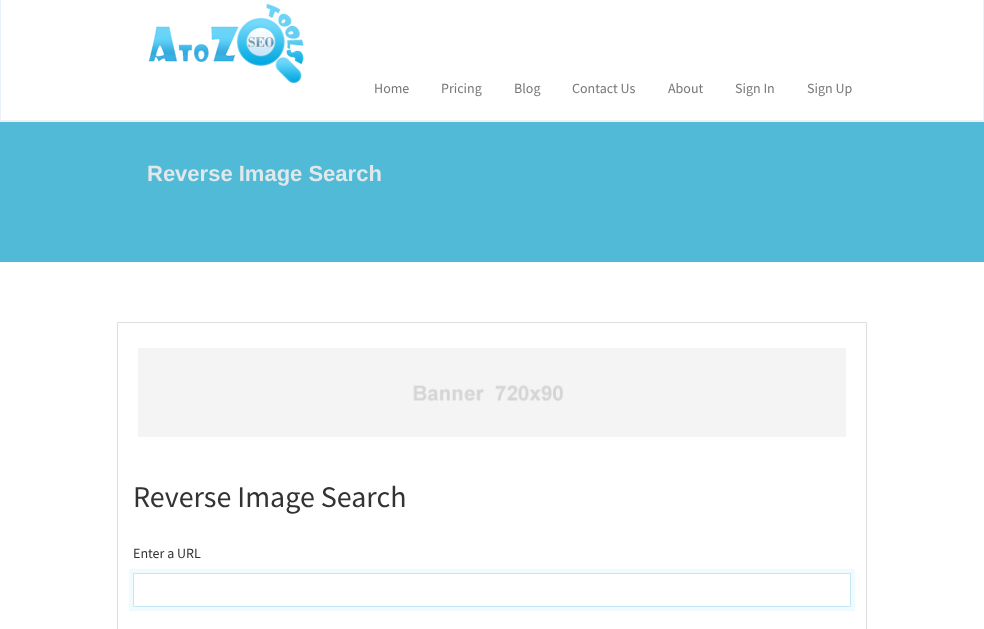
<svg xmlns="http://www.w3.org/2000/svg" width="984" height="629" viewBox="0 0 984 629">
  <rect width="100%" height="100%" fill="#fff"/>
  <path d="M983 0h1v122H983z" fill="#ebf1f8"/>
  <path d="M0 120h984v2H0z" fill="#ebf1f8"/>
  <path d="M0 0h1v122H0z" fill="#ebf1f8"/>
  <image x="148" y="3" width="156" height="80" href="img/1.png"/>
  <path d="M0 122h984v140H0z" fill="#51bad6"/>
  <path d="M117.5 322.5h749v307H117.5z" fill="none" stroke="#ddd"/>
  <image x="138" y="348" width="708" height="89" href="img/2.png"/>
  <path d="M131 571h722v38H131z" fill="none" stroke="#f0fbff" stroke-width="4"/>
  <path d="M133.5 573.5h717v33H133.5z" fill="none" stroke="#c3e8f4"/>
  <g font-family="Source Sans Pro" font-size="14" fill="#777">
    <text x="374" y="93">Home</text>
    <text x="441" y="93">Pricing</text>
    <text x="514" y="93">Blog</text>
    <text x="572" y="93">Contact Us</text>
    <text x="668" y="93">About</text>
    <text x="735" y="93">Sign In</text>
    <text x="807" y="93">Sign Up</text>
  </g>
  <text x="147" y="181" font-family="Liberation Sans" font-size="22" font-weight="bold" fill="#e0e8eb">Reverse Image Search</text>
  <text x="133" y="507" font-family="Source Sans Pro" font-size="30" fill="#333">Reverse Image Search</text>
  <text x="133" y="558" font-family="Source Sans Pro" font-size="14" fill="#333">Enter a URL</text>
</svg>
